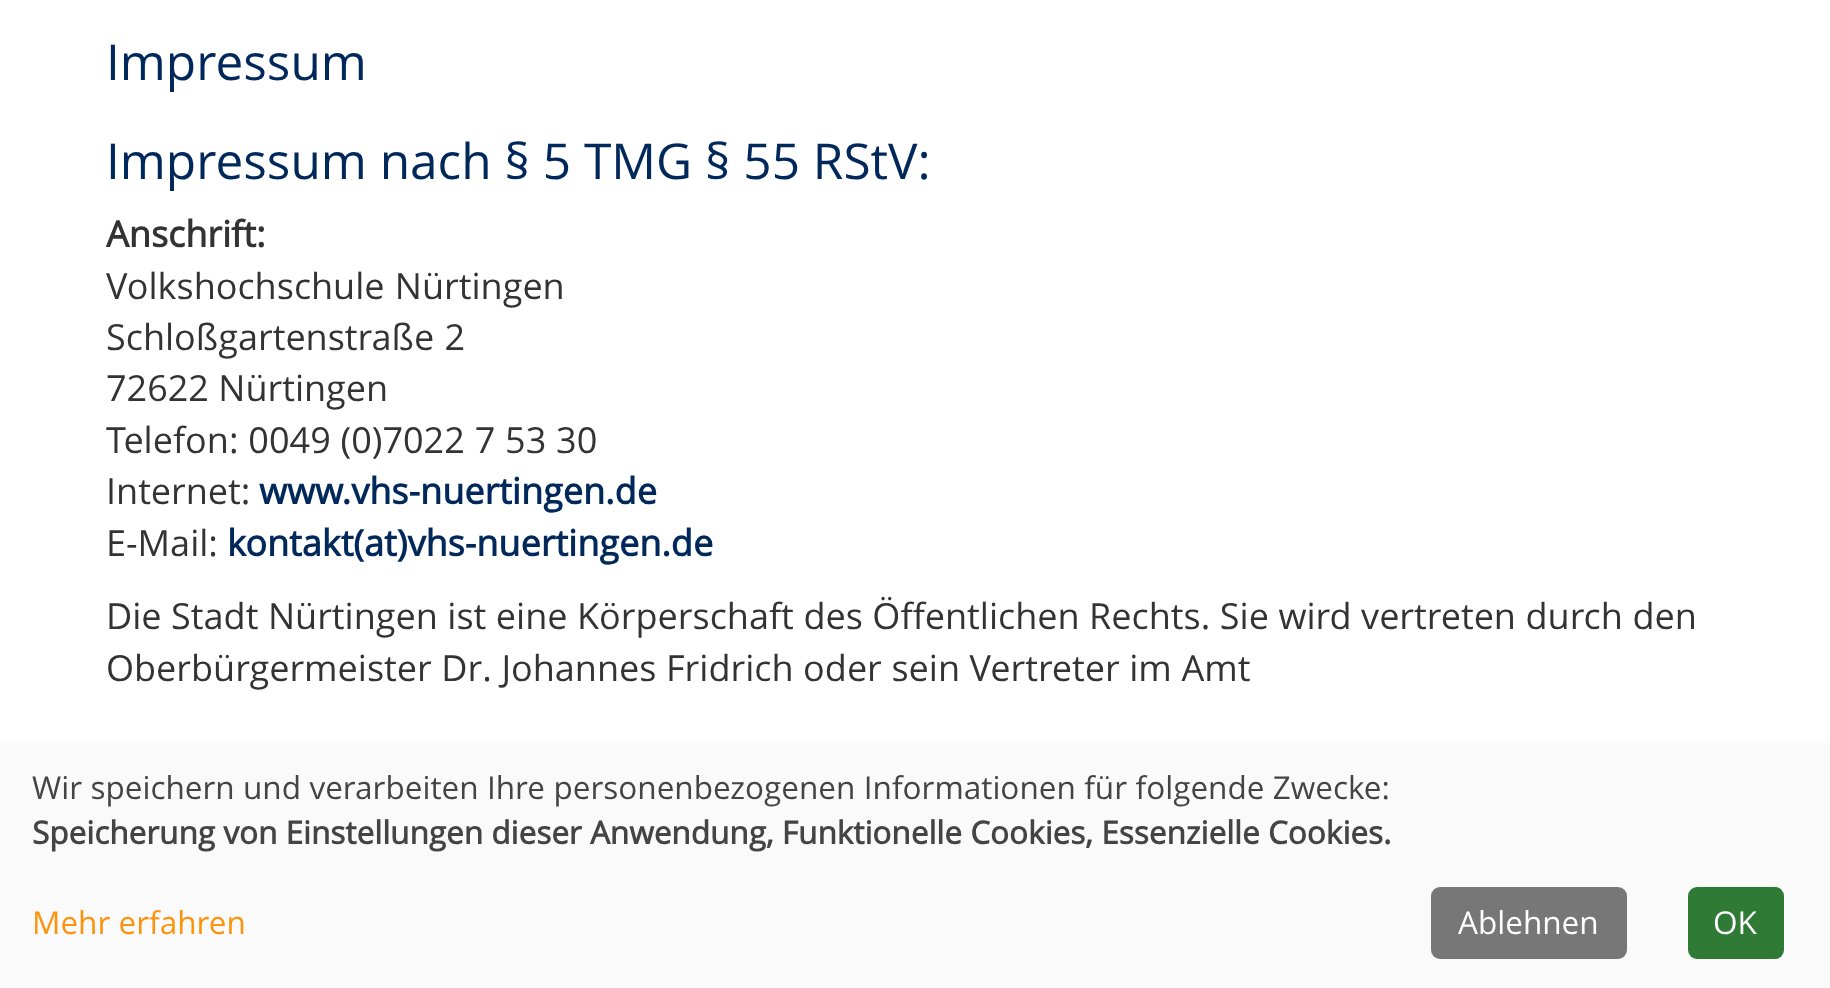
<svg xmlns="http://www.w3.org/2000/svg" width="1830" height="988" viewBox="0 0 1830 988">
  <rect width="100%" height="100%" fill="#fff"/>
  <path d="M0 743h1830v245H0z" fill="#fafafa"/>
  <rect x="1431" y="887" width="196" height="72" rx="9" fill="#777"/>
  <rect x="1688" y="887" width="96" height="72" rx="9" fill="#2f7a35"/>
  <g font-family="Open Sans" font-size="49.5" fill="#00285a">
    <text x="106" y="80">Impressum</text>
    <text x="106" y="179">Impressum nach § 5 TMG § 55 RStV:</text>
  </g>
  <text x="106" y="247" font-family="Open Sans" font-size="36" font-weight="bold" fill="#333">Anschrift:</text>
  <g font-family="Open Sans" font-size="36" fill="#333">
    <text x="106" y="299" word-spacing="1">Volkshochschule Nürtingen</text>
    <text x="106" y="350" word-spacing="1">Schloßgartenstraße 2</text>
    <text x="106" y="401">72622 Nürtingen</text>
    <text x="106" y="453" word-spacing="0.5">Telefon: 0049 (0)7022 7 53 30</text>
    <text x="106" y="504">Internet:</text>
  </g>
  <text x="259" y="504" font-family="Open Sans" font-size="36" font-weight="bold" fill="#00285a">www.vhs-nuertingen.de</text>
  <text x="106" y="556" font-family="Open Sans" font-size="36" fill="#333">E-Mail:</text>
  <text x="227" y="556" font-family="Open Sans" font-size="36" font-weight="bold" fill="#00285a">kontakt(at)vhs-nuertingen.de</text>
  <g font-family="Open Sans" font-size="36" fill="#333">
    <text x="106" y="629" word-spacing="0.2">Die Stadt Nürtingen ist eine Körperschaft des Öffentlichen Rechts. Sie wird vertreten durch den</text>
    <text x="106" y="681" word-spacing="0.25">Oberbürgermeister Dr. Johannes Fridrich oder sein Vertreter im Amt</text>
  </g>
  <text x="32" y="799" word-spacing="0.25" font-family="Open Sans" font-size="31.5" fill="#444">Wir speichern und verarbeiten Ihre personenbezogenen Informationen für folgende Zwecke:</text>
  <text x="32" y="844" font-family="Open Sans" font-size="31.5" font-weight="bold" fill="#444">Speicherung von Einstellungen dieser Anwendung, Funktionelle Cookies, Essenzielle Cookies.</text>
  <text x="32" y="934" font-family="Open Sans" font-size="31.5" fill="#fd930c">Mehr erfahren</text>
  <g font-family="Open Sans" font-size="31.5" fill="#fff">
    <text x="1458" y="934">Ablehnen</text>
    <text x="1713" y="934">OK</text>
  </g>
</svg>
